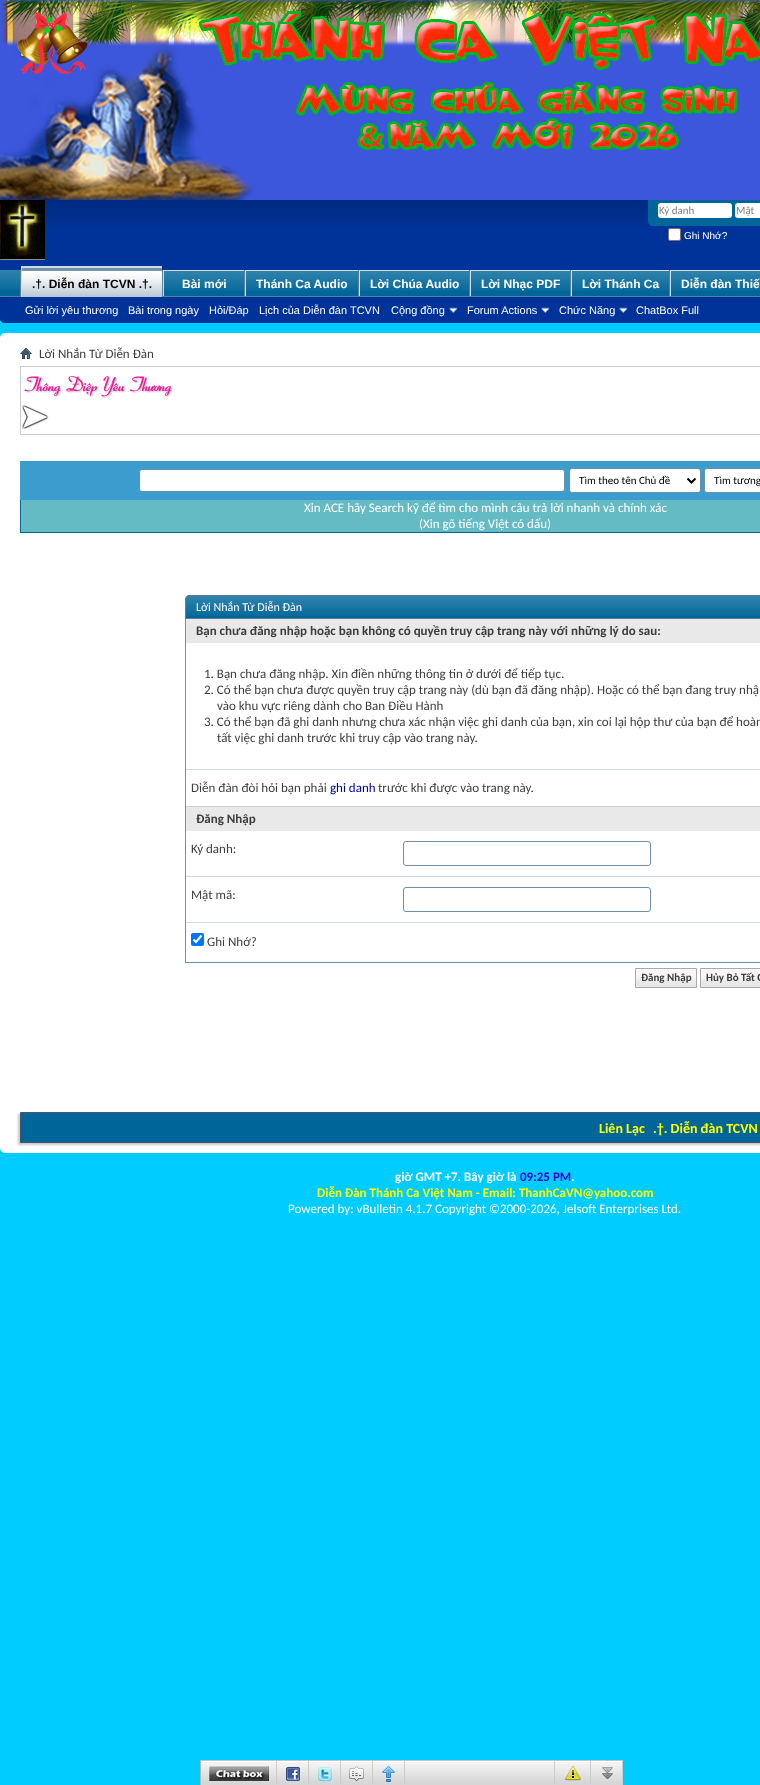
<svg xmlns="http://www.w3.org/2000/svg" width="760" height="1785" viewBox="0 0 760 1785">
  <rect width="100%" height="100%" fill="#0cf"/>
  <image x="0" y="0" width="760" height="200" href="img/1.png"/>
  <path d="M0 200H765V318C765 321 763 323 760 323H5C2 323 0 321 0 318Z" fill="#039"/>
  <image x="45" y="200" width="608" height="26" href="img/2.png"/>
  <image x="0" y="200" width="45" height="60" href="img/3.png"/>
  <path d="M648 200H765V221C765 224 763 226 760 226H653C650 226 648 224 648 221Z" fill="#069"/>
  <rect x="658" y="203" width="74" height="15" rx="3" fill="#fff"/>
  <rect x="735" y="203" width="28" height="15" rx="3" fill="#fff"/>
  <rect x="668.5" y="228.5" width="12" height="12" rx="1.5" fill="#fff" stroke="#767676"/>
  <path d="M0 270H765V318C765 321 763 323 760 323H5C2 323 0 321 0 318Z" fill="#039"/>
  <path d="M0 270h20v26H0z" fill="#069"/>
  <image x="0" y="270" width="20" height="20" href="img/4.png"/>
  <path d="M162 270h1v26H162z" fill="#5a7f97"/>
  <path d="M20 270h1v26H20z" fill="#5a7f97"/>
  <path d="M670 270h90v1H670z" fill="#cedfeb"/>
  <path d="M670 270h1v27H670z" fill="#cedfeb"/>
  <path d="M244 270h1v27H244z" fill="#5a7f97"/>
  <path d="M163 270h81v1H163z" fill="#cedfeb"/>
  <path d="M163 270h1v27H163z" fill="#cedfeb"/>
  <path d="M358 270h1v27H358z" fill="#5a7f97"/>
  <path d="M245 270h113v1H245z" fill="#cedfeb"/>
  <path d="M245 270h1v27H245z" fill="#cedfeb"/>
  <path d="M469 270h1v27H469z" fill="#5a7f97"/>
  <path d="M359 270h110v1H359z" fill="#cedfeb"/>
  <path d="M359 270h1v27H359z" fill="#cedfeb"/>
  <path d="M570 270h1v27H570z" fill="#5a7f97"/>
  <path d="M470 270h100v1H470z" fill="#cedfeb"/>
  <path d="M470 270h1v27H470z" fill="#cedfeb"/>
  <path d="M669 270h1v27H669z" fill="#5a7f97"/>
  <path d="M571 270h98v1H571z" fill="#cedfeb"/>
  <path d="M571 270h1v27H571z" fill="#cedfeb"/>
  <path d="M0 296h760v1H0z" fill="#5a7f97"/>
  <path d="M22 267h140v30H22z" fill="#7192a8"/>
  <image x="22" y="267" width="140" height="30" href="img/5.png"/>
  <path d="M21 266h141v1H21z" fill="#cedfeb"/>
  <path d="M21 266h1v31H21z" fill="#cedfeb"/>
  <image x="449" y="307" width="9" height="6" href="img/6.png"/>
  <image x="541" y="307" width="9" height="6" href="img/6.png"/>
  <image x="619" y="307" width="9" height="6" href="img/6.png"/>
  <path d="M671 271h89v25H671z" fill="#069"/>
  <image x="671" y="271" width="89" height="20" href="img/7.png"/>
  <path d="M164 271h80v25H164z" fill="#069"/>
  <image x="164" y="271" width="80" height="20" href="img/8.png"/>
  <path d="M246 271h112v25H246z" fill="#069"/>
  <image x="246" y="271" width="112" height="20" href="img/9.png"/>
  <path d="M360 271h109v25H360z" fill="#069"/>
  <image x="360" y="271" width="109" height="20" href="img/10.png"/>
  <path d="M471 271h99v25H471z" fill="#069"/>
  <image x="471" y="271" width="99" height="20" href="img/11.png"/>
  <path d="M572 271h97v25H572z" fill="#069"/>
  <image x="572" y="271" width="97" height="20" href="img/12.png"/>
  <rect y="333" width="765" height="820" rx="5" fill="#fff"/>
  <image x="20" y="348" width="12" height="11" href="img/13.png"/>
  <path d="M20 366h740v1H20z" fill="#ccc"/>
  <path d="M20 434h740v1H20z" fill="#ccc"/>
  <path d="M20 366h1v69H20z" fill="#ccc"/>
  <image x="24" y="376" width="149" height="22" href="img/14.png"/>
  <image x="22" y="405" width="27" height="24" href="img/15.png"/>
  <path d="M21 500h739v32H21z" fill="#64bbc3"/>
  <path d="M20 532h740v1H20z" fill="#069"/>
  <path d="M20 500h1v33H20z" fill="#069"/>
  <path d="M21 462h739v37H21z" fill="#3a9dcd"/>
  <path d="M20 461h740v1H20z" fill="#3a9dcd"/>
  <path d="M20 499h740v1H20z" fill="#3a9dcd"/>
  <path d="M20 461h1v39H20z" fill="#3a9dcd"/>
  <rect x="139.5" y="469.5" width="425" height="22" rx="2.5" fill="#fff" stroke="#6b91ab"/>
  <rect x="569.5" y="468.5" width="131" height="24" rx="2.5" fill="#fff" stroke="#6b91ab"/>
  <path d="M687.5 478.5L691.5 482.5L695.5 478.5" fill="none" stroke="#000" stroke-width="2"/>
  <rect x="704.5" y="468.5" width="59" height="24" rx="2.5" fill="#fff" stroke="#6b91ab"/>
  <path d="M190 595H760C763 595 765 597 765 600V619H185V600C185 597 187 595 190 595Z" fill="#069"/>
  <image x="185" y="596" width="575" height="20" href="img/16.png"/>
  <path d="M190 595.5H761C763.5 595.5 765.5 597.5 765.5 600V618.5H185.5V600C185.5 597.5 187.5 595.5 190 595.5Z" fill="none" stroke="#5a7f97"/>
  <path d="M185 962h575v1H185z" fill="#6b91ab"/>
  <path d="M185 619h1v344H185z" fill="#6b91ab"/>
  <path d="M186 619h574v24H186z" fill="#e9e9e9"/>
  <path d="M186 769h574v1H186z" fill="#cedfeb"/>
  <path d="M186 807h574v24H186z" fill="#e9e9e9"/>
  <path d="M186 806h574v1H186z" fill="#cecece"/>
  <rect x="403.5" y="841.5" width="247" height="24" rx="2.5" fill="none" stroke="#6b91ab"/>
  <path d="M186 876h574v1H186z" fill="#cedfeb"/>
  <rect x="403.5" y="887.5" width="247" height="24" rx="2.5" fill="none" stroke="#6b91ab"/>
  <path d="M186 922h574v1H186z" fill="#cedfeb"/>
  <rect x="191" y="933" width="13" height="13" rx="2" fill="#0075ff"/>
  <path d="M193.5 939.5L196 942L201.5 935.5" fill="none" stroke="#fff" stroke-width="2.1"/>
  <path d="M636 969h60v18H636z" fill="#e9e9e9"/>
  <image x="636" y="969" width="60" height="12" href="img/17.png"/>
  <path d="M635.5 968.5h61v19H635.5z" fill="none" stroke="#a8a8a8"/>
  <path d="M701 969h59v18H701z" fill="#e9e9e9"/>
  <image x="701" y="969" width="59" height="12" href="img/18.png"/>
  <path d="M700.5 968.5h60v19H700.5z" fill="none" stroke="#a8a8a8"/>
  <path d="M18 1114h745v31H18z" fill="#c8c8c8" filter="blur(1px)"/>
  <path d="M20.5 1112.5h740v30H20.5z" fill="#069" stroke="#425769"/>
  <image x="201" y="1760" width="422" height="25" href="img/19.png"/>
  <path d="M200 1760h1v25H200z" fill="#b5b5b5"/>
  <path d="M276 1761h1v23H276z" fill="#ccc"/>
  <image x="209" y="1766" width="60" height="15" href="img/20.png"/>
  <path d="M308 1761h1v23H308z" fill="#ccc"/>
  <image x="286" y="1767" width="14" height="14" href="img/21.png"/>
  <path d="M340 1761h1v23H340z" fill="#ccc"/>
  <image x="318" y="1767" width="14" height="14" href="img/22.png"/>
  <path d="M372 1761h1v23H372z" fill="#ccc"/>
  <image x="349" y="1766" width="15" height="15" href="img/23.png"/>
  <path d="M404 1761h1v23H404z" fill="#ccc"/>
  <image x="382" y="1766" width="13" height="16" href="img/24.png"/>
  <image x="565" y="1766" width="16" height="15" href="img/25.png"/>
  <path d="M590 1761h1v23H590z" fill="#ccc"/>
  <path d="M554 1761h1v23H554z" fill="#ccc"/>
  <image x="602" y="1767" width="11" height="12" href="img/26.png"/>
  <path d="M622 1761h1v24H622z" fill="#ccc"/>
  <g font-family="Carlito" font-size="11" fill="#828282">
    <text x="659" y="214">Ký danh</text>
    <text x="736" y="214">Mật</text>
  </g>
  <text x="684" y="239" font-family="Liberation Sans" font-size="10" fill="#fff">Ghi Nhớ?</text>
  <text x="32" y="288" font-family="Liberation Sans" font-size="12" font-weight="bold" fill="#000">.†. Diễn đàn TCVN .†.</text>
  <g font-family="Liberation Sans" font-size="11" fill="#fff">
    <text x="25" y="314">Gửi lời yêu thương</text>
    <text x="128" y="314">Bài trong ngày</text>
    <text x="209" y="314">Hỏi/Ðáp</text>
    <text x="259" y="314">Lịch của Diễn đàn TCVN</text>
    <text x="391" y="314">Cộng đồng</text>
    <text x="467" y="314">Forum Actions</text>
    <text x="559" y="314">Chức Năng</text>
    <text x="636" y="314">ChatBox Full</text>
  </g>
  <g font-family="Liberation Sans" font-size="12" font-weight="bold" fill="#fff">
    <text x="681" y="288">Diễn đàn Thiế</text>
    <text x="182" y="288">Bài mới</text>
    <text x="256" y="288">Thánh Ca Audio</text>
    <text x="370" y="288">Lời Chúa Audio</text>
    <text x="481" y="288">Lời Nhạc PDF</text>
    <text x="582" y="288">Lời Thánh Ca</text>
  </g>
  <text x="39" y="358" font-family="Carlito" font-size="13" fill="#3e3e3e">Lời Nhắn Từ Diễn Ðàn</text>
  <g font-family="Carlito" font-size="11" fill="#000">
    <text x="579" y="484">Tìm theo tên Chủ đề</text>
    <text x="714" y="484">Tìm tương</text>
  </g>
  <g font-family="Carlito" font-size="13" fill="#fff">
    <text x="304" y="512">Xin ACE hãy Search kỹ để tìm cho mình câu trả lời nhanh và chính xác</text>
    <text x="419" y="528">(Xin gõ tiếng Việt có dấu)</text>
  </g>
  <text x="196" y="611" font-family="Carlito" font-size="12" fill="#fff">Lời Nhắn Từ Diễn Ðàn</text>
  <text x="196" y="635" font-family="Carlito" font-size="13" font-weight="bold" fill="#3e3e3e">Bạn chưa đăng nhập hoặc bạn không có quyền truy cập trang này với những lý do sau:</text>
  <g font-family="Carlito" font-size="13" fill="#3e3e3e">
    <text x="204" y="678">1. Bạn chưa đăng nhập. Xin điền những thông tin ở dưới để tiếp tục.</text>
    <text x="204" y="694">2. Có thể bạn chưa được quyền truy cập trang này (dù bạn đã đăng nhập). Hoặc có thể bạn đang truy nhậ</text>
    <text x="217" y="710">vào khu vực riêng dành cho Ban Điều Hành</text>
    <text x="204" y="726">3. Có thể bạn đã ghi danh nhưng chưa xác nhận việc ghi danh của bạn, xin coi lại hộp thư của bạn để hoàn</text>
    <text x="217" y="742">tất việc ghi danh trước khi truy cập vào trang này.</text>
    <text x="191" y="792">Diễn đàn đòi hỏi bạn phải</text>
  </g>
  <text x="330" y="792" font-family="Carlito" font-size="13" fill="#009">ghi danh</text>
  <text x="378" y="792" font-family="Carlito" font-size="13" fill="#3e3e3e">trước khi được vào trang này.</text>
  <text x="196" y="823" font-family="Carlito" font-size="13" font-weight="bold" fill="#3e3e3e">Ðăng Nhập</text>
  <g font-family="Carlito" font-size="13" fill="#3e3e3e">
    <text x="191" y="853">Ký danh:</text>
    <text x="191" y="899">Mật mã:</text>
    <text x="207" y="946">Ghi Nhớ?</text>
  </g>
  <g font-family="Carlito" font-size="11" font-weight="bold" fill="#3e3e3e">
    <text x="641" y="981">Ðăng Nhập</text>
    <text x="706" y="981">Hủy Bỏ Tất C</text>
  </g>
  <g font-family="Carlito" font-size="14" font-weight="bold" fill="#ff0">
    <text x="599" y="1133">Liên Lạc</text>
    <text x="653" y="1133">.†. Diễn đàn TCVN</text>
  </g>
  <text x="395" y="1181" font-family="Carlito" font-size="13" font-weight="bold" fill="#fff">giờ GMT +7. Bây giờ là</text>
  <text x="520" y="1181" font-family="Carlito" font-size="13" font-weight="bold" fill="#30c">09:25 PM</text>
  <text x="571" y="1181" font-family="Carlito" font-size="13" font-weight="bold" fill="#fff">.</text>
  <text x="317" y="1197" font-family="Carlito" font-size="13" font-weight="bold" fill="#ff0">Diễn Đàn Thánh Ca Việt Nam - Email: ThanhCaVN@yahoo.com</text>
  <text x="288" y="1213" font-family="Carlito" font-size="13" fill="#fff">Powered by: vBulletin 4.1.7 Copyright ©2000-2026, Jelsoft Enterprises Ltd.</text>
</svg>
